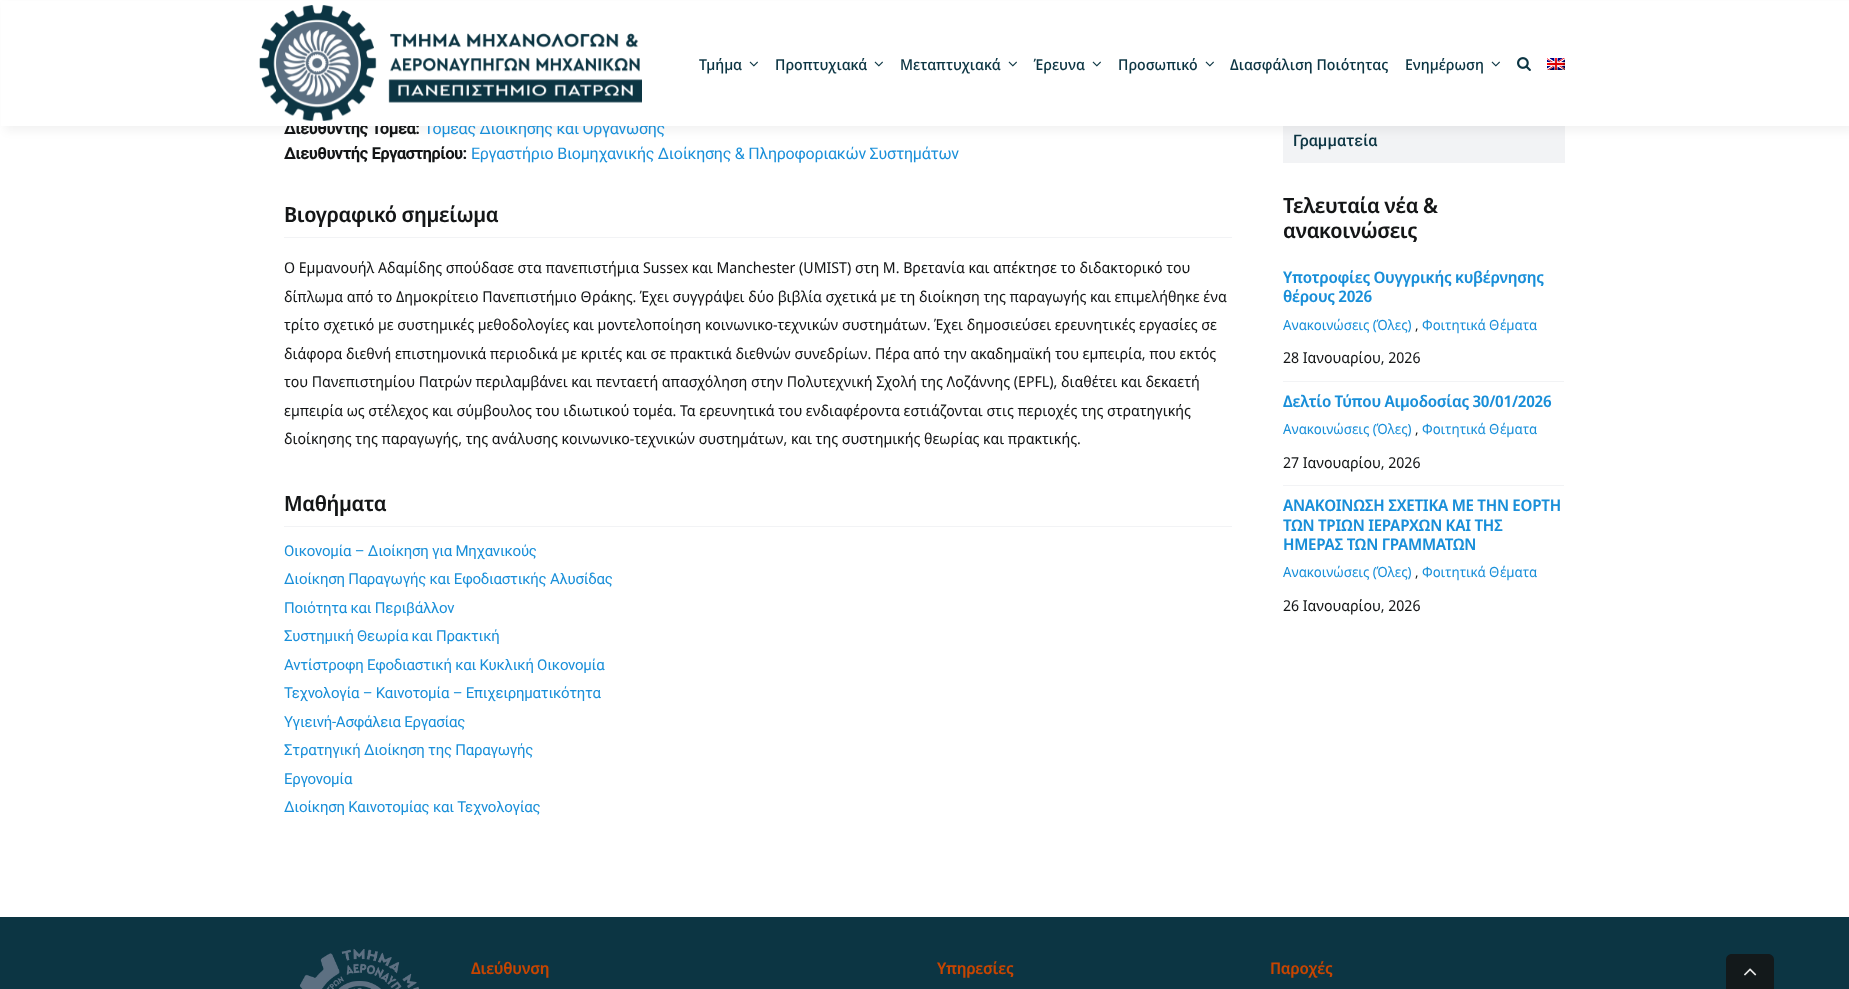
<svg xmlns="http://www.w3.org/2000/svg" width="1849" height="989" viewBox="0 0 1849 989">
  <rect width="100%" height="100%" fill="#fff"/>
  <path d="M1283 126h282v37H1283z" fill="#f2f3f5"/>
  <path d="M5 5h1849v126H5z" fill="#0000000d" filter="blur(5px)"/>
  <path d="M284 237h948v1H284z" fill="#f2f3f5"/>
  <path d="M284 526h948v1H284z" fill="#f2f3f5"/>
  <path d="M1283 381h281v1H1283z" fill="#f2f3f5"/>
  <path d="M1283 485h281v1H1283z" fill="#f2f3f5"/>
  <path d="M0 917h1849v72H0z" fill="#0c3543"/>
  <image x="299" y="949" width="120" height="40" href="img/5.png"/>
  <path d="M1732 954H1768C1771.5 954 1774 956.5 1774 960V989H1726V960C1726 956.5 1728.5 954 1732 954Z" fill="#13191b"/>
  <image x="1744" y="968" width="13" height="8" href="img/6.png"/>
  <text x="284" y="134" font-family="Roboto" font-size="16" font-weight="bold" letter-spacing="-0.25" fill="#141617">Διευθυντής Τομέα:</text>
  <text x="424" y="134" font-family="Roboto" font-size="16" letter-spacing="-0.25" fill="#198fd9">Τομέας Διοίκησης και Οργάνωσης</text>
  <path d="M1 1h1848v125H1z" fill="#fff"/>
  <image x="1547" y="58" width="18" height="12" href="img/4.png"/>
  <image x="1517" y="57" width="14" height="14" href="img/3.png"/>
  <image x="1491" y="61" width="9" height="6" href="img/2.png"/>
  <g font-family="Noto Sans Display" font-size="15" font-weight="500" fill="#0c3543">
    <text x="1405" y="70">Ενημέρωση</text>
    <text x="1230" y="70">Διασφάλιση Ποιότητας</text>
  </g>
  <image x="1205" y="61" width="9" height="6" href="img/2.png"/>
  <text x="1118" y="70" font-family="Noto Sans Display" font-size="15" font-weight="500" fill="#0c3543">Προσωπικό</text>
  <image x="1092" y="61" width="9" height="6" href="img/2.png"/>
  <text x="1034" y="70" font-family="Noto Sans Display" font-size="15" font-weight="500" fill="#0c3543">Έρευνα</text>
  <image x="1008" y="61" width="9" height="6" href="img/2.png"/>
  <text x="900" y="70" font-family="Noto Sans Display" font-size="15" font-weight="500" fill="#0c3543">Μεταπτυχιακά</text>
  <image x="874" y="61" width="9" height="6" href="img/2.png"/>
  <text x="775" y="70" font-family="Noto Sans Display" font-size="15" font-weight="500" fill="#0c3543">Προπτυχιακά</text>
  <image x="749" y="61" width="9" height="6" href="img/2.png"/>
  <text x="699" y="70" font-family="Noto Sans Display" font-size="15" font-weight="500" fill="#0c3543">Τμήμα</text>
  <image x="259" y="5" width="383" height="116" href="img/1.png"/>
  <text x="284" y="159" font-family="Roboto" font-size="16" font-weight="bold" letter-spacing="-0.25" fill="#141617">Διευθυντής Εργαστηρίου:</text>
  <text x="471" y="159" font-family="Roboto" font-size="16" letter-spacing="-0.25" fill="#198fd9">Εργαστήριο Βιομηχανικής Διοίκησης &amp; Πληροφοριακών Συστημάτων</text>
  <text x="284" y="222" font-family="Noto Sans Display" font-size="21" font-weight="600" letter-spacing="-0.3" fill="#141617">Βιογραφικό σημείωμα</text>
  <g font-family="Noto Sans Display" font-size="15" fill="#141617">
    <text x="284" y="273">O Εμμανουήλ Αδαμίδης σπούδασε στα πανεπιστήμια Sussex και Manchester (UMIST) στη Μ. Βρετανία και απέκτησε το διδακτορικό του</text>
    <text x="284" y="302">δίπλωμα από το Δημοκρίτειο Πανεπιστήμιο Θράκης. Έχει συγγράψει δύο βιβλία σχετικά με τη διοίκηση της παραγωγής και επιμελήθηκε ένα</text>
    <text x="284" y="330">τρίτο σχετικό με συστημικές μεθοδολογίες και μοντελοποίηση κοινωνικο-τεχνικών συστημάτων. Έχει δημοσιεύσει ερευνητικές εργασίες σε</text>
    <text x="284" y="359">διάφορα διεθνή επιστημονικά περιοδικά με κριτές και σε πρακτικά διεθνών συνεδρίων. Πέρα από την ακαδημαϊκή του εμπειρία, που εκτός</text>
    <text x="284" y="387">του Πανεπιστημίου Πατρών περιλαμβάνει και πενταετή απασχόληση στην Πολυτεχνική Σχολή της Λοζάννης (EPFL), διαθέτει και δεκαετή</text>
    <text x="284" y="416">εμπειρία ως στέλεχος και σύμβουλος του ιδιωτικού τομέα. Τα ερευνητικά του ενδιαφέροντα εστιάζονται στις περιοχές της στρατηγικής</text>
    <text x="284" y="444">διοίκησης της παραγωγής, της ανάλυσης κοινωνικο-τεχνικών συστημάτων, και της συστημικής θεωρίας και πρακτικής.</text>
  </g>
  <text x="284" y="511" font-family="Noto Sans Display" font-size="21" font-weight="600" letter-spacing="-0.3" fill="#141617">Μαθήματα</text>
  <g font-family="Roboto" font-size="15" letter-spacing="-0.25" fill="#198fd9">
    <text x="284" y="556">Οικονομία – Διοίκηση για Μηχανικούς</text>
    <text x="284" y="584">Διοίκηση Παραγωγής και Εφοδιαστικής Αλυσίδας</text>
    <text x="284" y="613">Ποιότητα και Περιβάλλον</text>
    <text x="284" y="641">Συστημική Θεωρία και Πρακτική</text>
    <text x="284" y="670">Αντίστροφη Εφοδιαστική και Κυκλική Οικονομία</text>
    <text x="284" y="698">Τεχνολογία – Καινοτομία – Επιχειρηματικότητα</text>
    <text x="284" y="727">Υγιεινή-Ασφάλεια Εργασίας</text>
    <text x="284" y="755">Στρατηγική Διοίκηση της Παραγωγής</text>
    <text x="284" y="784">Εργονομία</text>
    <text x="284" y="812">Διοίκηση Καινοτομίας και Τεχνολογίας</text>
  </g>
  <text x="1293" y="146" font-family="Roboto" font-size="16" font-weight="500" fill="#0c3543">Γραμματεία</text>
  <g font-family="Noto Sans Display" font-size="21" font-weight="600" letter-spacing="-0.3" fill="#141617">
    <text x="1283" y="213">Τελευταία νέα &amp;</text>
    <text x="1283" y="238">ανακοινώσεις</text>
  </g>
  <g font-family="Noto Sans Display" font-size="16" font-weight="600" letter-spacing="-0.25" fill="#198fd9">
    <text x="1283" y="283">Υποτροφίες Ουγγρικής κυβέρνησης</text>
    <text x="1283" y="302">θέρους 2026</text>
  </g>
  <text x="1283" y="330" font-family="Noto Sans Display" font-size="14" fill="#198fd9">Ανακοινώσεις (Όλες)</text>
  <text x="1415" y="330" font-family="Noto Sans Display" font-size="14" fill="#141617">,</text>
  <text x="1422" y="330" font-family="Noto Sans Display" font-size="14" fill="#198fd9">Φοιτητικά Θέματα</text>
  <text x="1283" y="363" font-family="Noto Sans Display" font-size="15" fill="#141617">28 Ιανουαρίου, 2026</text>
  <text x="1283" y="407" font-family="Noto Sans Display" font-size="16" font-weight="600" letter-spacing="-0.25" fill="#198fd9">Δελτίο Τύπου Αιμοδοσίας 30/01/2026</text>
  <text x="1283" y="434" font-family="Noto Sans Display" font-size="14" fill="#198fd9">Ανακοινώσεις (Όλες)</text>
  <text x="1415" y="434" font-family="Noto Sans Display" font-size="14" fill="#141617">,</text>
  <text x="1422" y="434" font-family="Noto Sans Display" font-size="14" fill="#198fd9">Φοιτητικά Θέματα</text>
  <text x="1283" y="468" font-family="Noto Sans Display" font-size="15" fill="#141617">27 Ιανουαρίου, 2026</text>
  <g font-family="Noto Sans Display" font-size="16" font-weight="600" letter-spacing="-0.25" fill="#198fd9">
    <text x="1283" y="511">ΑΝΑΚΟΙΝΩΣΗ ΣΧΕΤΙΚΑ ΜΕ ΤΗΝ ΕΟΡΤΗ</text>
    <text x="1283" y="531">ΤΩΝ ΤΡΙΩΝ ΙΕΡΑΡΧΩΝ ΚΑΙ ΤΗΣ</text>
    <text x="1283" y="550">ΗΜΕΡΑΣ ΤΩΝ ΓΡΑΜΜΑΤΩΝ</text>
  </g>
  <text x="1283" y="577" font-family="Noto Sans Display" font-size="14" fill="#198fd9">Ανακοινώσεις (Όλες)</text>
  <text x="1415" y="577" font-family="Noto Sans Display" font-size="14" fill="#141617">,</text>
  <text x="1422" y="577" font-family="Noto Sans Display" font-size="14" fill="#198fd9">Φοιτητικά Θέματα</text>
  <text x="1283" y="611" font-family="Noto Sans Display" font-size="15" fill="#141617">26 Ιανουαρίου, 2026</text>
  <g font-family="Noto Sans Display" font-size="16" font-weight="600" letter-spacing="-0.25" fill="#c74500">
    <text x="471" y="974">Διεύθυνση</text>
    <text x="937" y="974">Υπηρεσίες</text>
    <text x="1270" y="974">Παροχές</text>
  </g>
</svg>
